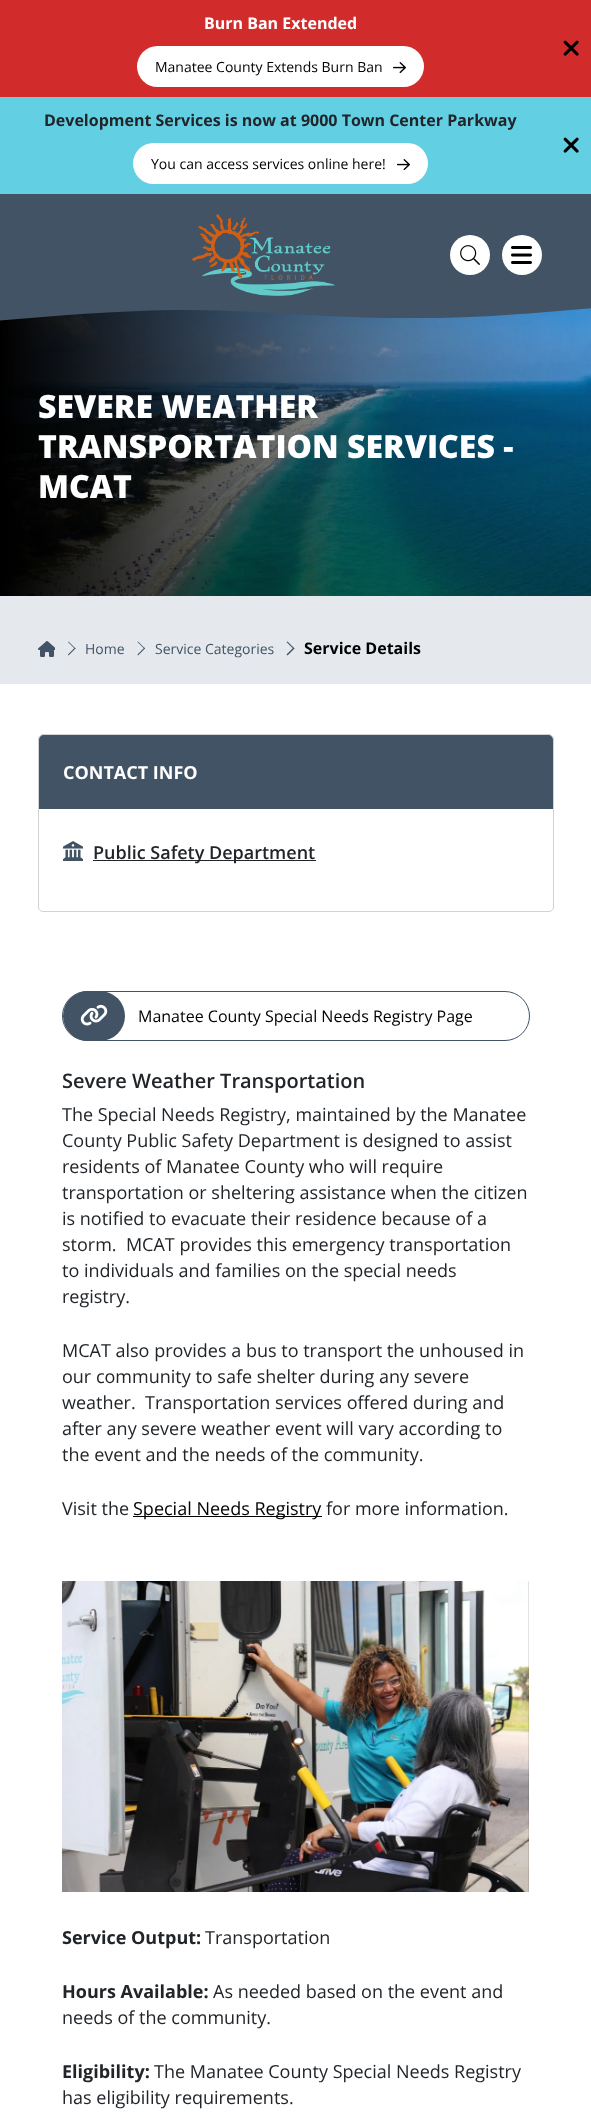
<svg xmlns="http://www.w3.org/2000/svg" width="591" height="2127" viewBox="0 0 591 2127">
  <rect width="100%" height="100%" fill="#fff"/>
  <path d="M0 0h591v97H0z" fill="#d22b2b"/>
  <rect x="137" y="46" width="287" height="41" rx="20.5" fill="#fff"/>
  <image x="393" y="62" width="13" height="11" href="img/1.png"/>
  <image x="563" y="40" width="16" height="16" href="img/2.png"/>
  <path d="M0 97h591v97H0z" fill="#63cfe3"/>
  <rect x="133" y="143" width="295" height="41" rx="20.5" fill="#fff"/>
  <image x="397" y="159" width="13" height="11" href="img/1.png"/>
  <image x="563" y="137" width="16" height="16" href="img/3.png"/>
  <path d="M0 194h591v73H0z" fill="#415364"/>
  <image x="0" y="308" width="591" height="288" href="img/7.png"/>
  <path d="M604 307C536 313 469 319 401 318C325 318 249 309 172 310C113 311 54 316-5 321V299L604 289Z" fill="#415364"/>
  <path d="M0 267h591v32H0z" fill="#415364"/>
  <image x="192" y="214" width="143" height="82" href="img/4.png"/>
  <circle cx="470" cy="255" r="20" fill="#fff"/>
  <image x="460" y="245" width="20" height="20" href="img/5.png"/>
  <circle cx="522" cy="255" r="20" fill="#fff"/>
  <image x="511" y="246" width="21" height="18" href="img/6.png"/>
  <path d="M0 596h591v88H0z" fill="#e5e9ed"/>
  <image x="38" y="641" width="17" height="16" href="img/8.png"/>
  <path d="M68.5 641.5L75.5 648.5L75 649L68 642Z" fill="#415364"/>
  <path d="M75 647.5L75.5 648.5L68.5 655.5L68 654.5Z" fill="#415364"/>
  <path d="M138 641.5L145 648.5L144.5 649L137.5 642Z" fill="#415364"/>
  <path d="M144.5 647.5L145 648.5L138 655.5L137.5 654.5Z" fill="#415364"/>
  <path d="M287.5 641.5L294.5 648.5L293.5 649L286.5 642Z" fill="#415364"/>
  <path d="M293.5 647.5L294.5 648.5L287.5 655.5L286.5 654.5Z" fill="#415364"/>
  <rect x="38.5" y="734.5" width="515" height="177" rx="4.5" fill="none" stroke="#d0d2d3"/>
  <path d="M44 735H548C551 735 553 737 553 740V809H39V740C39 737 41 735 44 735Z" fill="#415364"/>
  <image x="63" y="841" width="20" height="20" href="img/9.png"/>
  <path d="M93 860h223v1H93z" fill="#212529"/>
  <rect x="62.5" y="991.5" width="467" height="49" rx="24.5" fill="none" stroke="#415364"/>
  <rect x="63" y="991" width="62" height="50" rx="25" fill="#415364"/>
  <image x="80" y="1004" width="28" height="22" href="img/10.png"/>
  <path d="M133 1516h189v1H133z" fill="#000"/>
  <image x="62" y="1581" width="467" height="311" href="img/11.png"/>
  <text x="204" y="29" font-family="Open Sans" font-size="16" font-weight="bold" fill="#fff">Burn Ban Extended</text>
  <text x="155" y="72" font-family="Open Sans" font-size="14" fill="#000">Manatee County Extends Burn Ban</text>
  <text x="44" y="126" font-family="Open Sans" font-size="16" font-weight="bold" fill="#212529">Development Services is now at 9000 Town Center Parkway</text>
  <text x="151" y="169" font-family="Open Sans" font-size="14" fill="#000">You can access services online here!</text>
  <g font-family="Open Sans" font-size="32" font-weight="800" fill="#fff">
    <text x="38" y="418">SEVERE WEATHER</text>
    <text x="38" y="458">TRANSPORTATION SERVICES -</text>
    <text x="38" y="498">MCAT</text>
  </g>
  <g font-family="Open Sans" font-size="14" fill="#415364">
    <text x="85" y="654">Home</text>
    <text x="155" y="654">Service Categories</text>
  </g>
  <text x="304" y="654" font-family="Open Sans" font-size="16" font-weight="bold" fill="#000">Service Details</text>
  <text x="63" y="779" font-family="Open Sans" font-size="18" font-weight="bold" fill="#fff">CONTACT INFO</text>
  <text x="93" y="859" font-family="Open Sans" font-size="18" font-weight="600" fill="#212529">Public Safety Department</text>
  <text x="138" y="1022" font-family="Open Sans" font-size="16" fill="#000">Manatee County Special Needs Registry Page</text>
  <text x="62" y="1088" font-family="Open Sans" font-size="20" font-weight="600" fill="#212529">Severe Weather Transportation</text>
  <g font-family="Open Sans" font-size="18" fill="#212529">
    <text x="62" y="1121">The Special Needs Registry, maintained by the Manatee</text>
    <text x="62" y="1147">County Public Safety Department is designed to assist</text>
    <text x="62" y="1173">residents of Manatee County who will require</text>
    <text x="62" y="1199">transportation or sheltering assistance when the citizen</text>
    <text x="62" y="1225">is notified to evacuate their residence because of a</text>
    <text x="62" y="1251" xml:space="preserve">storm.  MCAT provides this emergency transportation</text>
    <text x="62" y="1277">to individuals and families on the special needs</text>
    <text x="62" y="1303">registry.</text>
    <text x="62" y="1357">MCAT also provides a bus to transport the unhoused in</text>
    <text x="62" y="1383">our community to safe shelter during any severe</text>
    <text x="62" y="1409" xml:space="preserve">weather.  Transportation services offered during and</text>
    <text x="62" y="1435">after any severe weather event will vary according to</text>
    <text x="62" y="1461">the event and the needs of the community.</text>
    <text x="62" y="1515">Visit the</text>
  </g>
  <text x="133" y="1515" font-family="Open Sans" font-size="18" fill="#000">Special Needs Registry</text>
  <text x="326" y="1515" font-family="Open Sans" font-size="18" fill="#212529">for more information.</text>
  <text x="62" y="1944" font-family="Open Sans" font-size="18" font-weight="bold" fill="#212529">Service Output:</text>
  <text x="205" y="1944" font-family="Open Sans" font-size="18" fill="#212529">Transportation</text>
  <text x="62" y="1998" font-family="Open Sans" font-size="18" font-weight="bold" fill="#212529">Hours Available:</text>
  <g font-family="Open Sans" font-size="18" fill="#212529">
    <text x="213" y="1998">As needed based on the event and</text>
    <text x="62" y="2024">needs of the community.</text>
  </g>
  <text x="62" y="2078" font-family="Open Sans" font-size="18" font-weight="bold" fill="#212529">Eligibility:</text>
  <g font-family="Open Sans" font-size="18" fill="#212529">
    <text x="154" y="2078">The Manatee County Special Needs Registry</text>
    <text x="62" y="2104">has eligibility requirements.</text>
  </g>
</svg>
